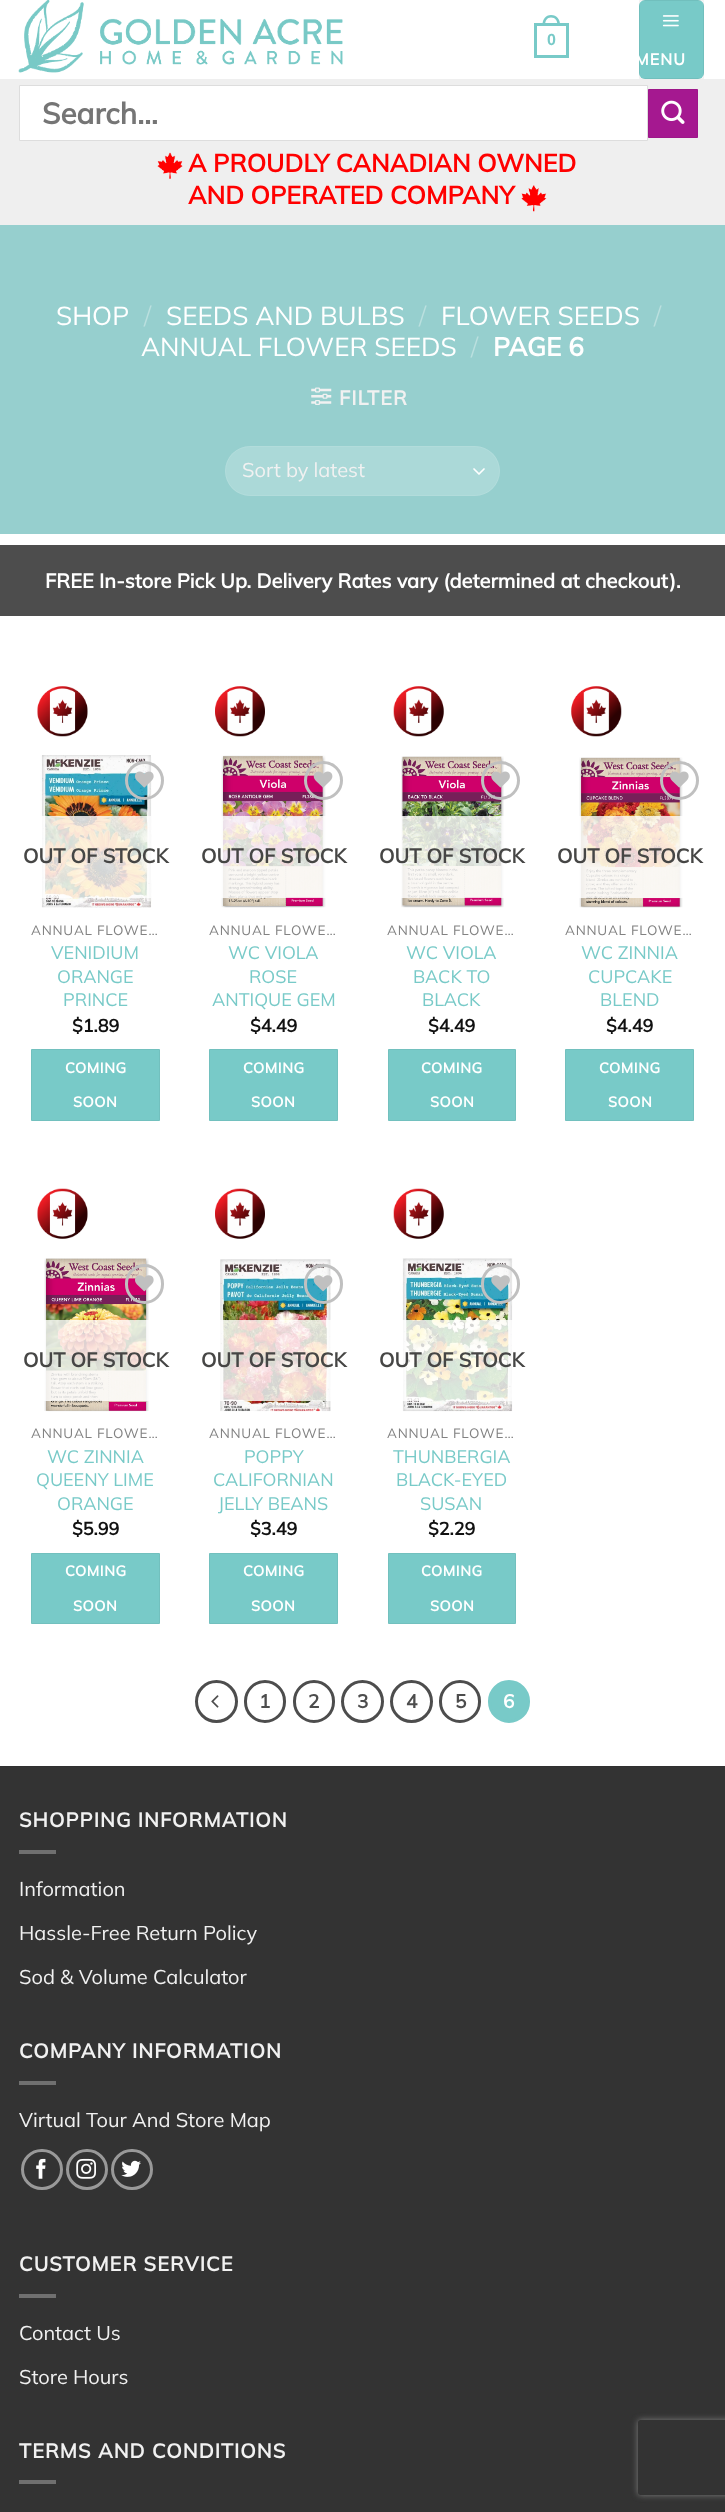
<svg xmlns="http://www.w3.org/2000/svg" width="725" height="2512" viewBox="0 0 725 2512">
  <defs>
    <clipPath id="clip1"><path d="M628 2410H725V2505H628ZM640.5 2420H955.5C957 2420 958 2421 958 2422.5V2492.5C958 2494 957 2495 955.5 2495H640.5C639 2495 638 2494 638 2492.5V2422.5C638 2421 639 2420 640.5 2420Z" clip-rule="evenodd"/></clipPath>
  </defs>
  <rect width="100%" height="100%" fill="#fff"/>
  <image x="18" y="0" width="325" height="73" href="img/1.png"/>
  <path d="M535.5 24.5h32v32H535.5z" fill="none" stroke="#78cac8" stroke-width="3"/>
  <path d="M551 15C557 15 560 19.5 560 25H542.5C542.5 19.5 545.5 15 551 15ZM551 17.5C555.5 17.5 557.5 21 557.5 25H545C545 21 547 17.5 551 17.5Z" fill="#78cac8" fill-rule="evenodd"/>
  <rect x="639" width="65" height="79" rx="6" fill="#78cac8"/>
  <path d="M639.5 0.5h64v78H639.5z" fill="none" stroke="#0000000d"/>
  <image x="662" y="15" width="17" height="12" href="img/2.png"/>
  <path d="M0 79h725v146H0z" fill="#efefef"/>
  <path d="M19.5 85.5h628v55H19.5z" fill="#fff" stroke="#ddd"/>
  <path d="M648.5 89.5h49v48H648.5z" fill="#a51890" stroke="#9d1789"/>
  <image x="661" y="100" width="24" height="24" href="img/3.png"/>
  <image x="157" y="152" width="26" height="27" href="img/4.png"/>
  <image x="521" y="185" width="26" height="27" href="img/5.png"/>
  <path d="M0 225h725v309H0z" fill="#96cfce"/>
  <image x="311" y="387" width="21" height="18" href="img/6.png"/>
  <rect x="225" y="446" width="275" height="50" rx="25" fill="#abd9d8"/>
  <path d="M474 469L479 474L484 469" fill="none" stroke="#fff" stroke-width="1.7" stroke-linecap="round" stroke-linejoin="round"/>
  <rect x="225.5" y="446.5" width="274" height="49" rx="24.5" fill="none" stroke="#ffffff17"/>
  <path d="M0 545h725v71H0z" fill="#4d4d4d"/>
  <image x="37" y="686" width="51" height="51" href="img/7.png"/>
  <image x="40" y="755" width="112" height="153" href="img/8.png"/>
  <circle cx="144.5" cy="780.5" r="18" fill="none" stroke="#c0c0c0" stroke-width="3"/>
  <image x="135" y="771" width="19" height="17" href="img/9.png"/>
  <path d="M40 816h111v82H40z" fill="#ffffffcf"/>
  <path d="M31.5 1049.5h128v71H31.5z" fill="#78cac8" stroke="#72c0be"/>
  <image x="215" y="686" width="50" height="51" href="img/10.png"/>
  <image x="221" y="755" width="105" height="153" href="img/11.png"/>
  <circle cx="323.5" cy="780.5" r="18" fill="none" stroke="#c0c0c0" stroke-width="3"/>
  <image x="313" y="771" width="20" height="17" href="img/12.png"/>
  <path d="M221 816h105v82H221z" fill="#ffffffcf"/>
  <path d="M209.5 1049.5h128v71H209.5z" fill="#78cac8" stroke="#72c0be"/>
  <image x="393" y="686" width="51" height="51" href="img/13.png"/>
  <image x="401" y="756" width="103" height="152" href="img/14.png"/>
  <circle cx="500.5" cy="780.5" r="18" fill="none" stroke="#c0c0c0" stroke-width="3"/>
  <image x="491" y="771" width="19" height="17" href="img/15.png"/>
  <path d="M401 816h103v82H401z" fill="#ffffffcf"/>
  <path d="M388.5 1049.5h127v71H388.5z" fill="#78cac8" stroke="#72c0be"/>
  <image x="571" y="686" width="51" height="51" href="img/16.png"/>
  <image x="579" y="757" width="104" height="151" href="img/17.png"/>
  <circle cx="679.5" cy="780.5" r="18" fill="none" stroke="#c0c0c0" stroke-width="3"/>
  <image x="670" y="771" width="19" height="17" href="img/18.png"/>
  <path d="M579 816h104v82H579z" fill="#ffffffcf"/>
  <path d="M565.5 1049.5h128v71H565.5z" fill="#78cac8" stroke="#72c0be"/>
  <image x="37" y="1188" width="51" height="51" href="img/19.png"/>
  <image x="44" y="1258" width="105" height="154" href="img/20.png"/>
  <rect x="126.5" y="1265.5" width="36" height="37" rx="18" fill="none" stroke="#c0c0c0" stroke-width="3"/>
  <image x="135" y="1275" width="19" height="17" href="img/21.png"/>
  <path d="M44 1320h105v81H44z" fill="#ffffffcf"/>
  <path d="M31.5 1553.5h128v70H31.5z" fill="#78cac8" stroke="#72c0be"/>
  <image x="215" y="1188" width="50" height="51" href="img/22.png"/>
  <image x="220" y="1259" width="111" height="153" href="img/23.png"/>
  <rect x="305.5" y="1265.5" width="36" height="37" rx="18" fill="none" stroke="#c0c0c0" stroke-width="3"/>
  <image x="313" y="1275" width="20" height="17" href="img/24.png"/>
  <path d="M220 1320h111v81H220z" fill="#ffffffcf"/>
  <path d="M209.5 1553.5h128v70H209.5z" fill="#78cac8" stroke="#72c0be"/>
  <image x="393" y="1188" width="51" height="51" href="img/25.png"/>
  <image x="402" y="1258" width="111" height="154" href="img/26.png"/>
  <rect x="482.5" y="1265.5" width="36" height="37" rx="18" fill="none" stroke="#c0c0c0" stroke-width="3"/>
  <image x="491" y="1275" width="19" height="17" href="img/27.png"/>
  <path d="M402 1320h111v81H402z" fill="#ffffffcf"/>
  <path d="M388.5 1553.5h127v70H388.5z" fill="#78cac8" stroke="#72c0be"/>
  <circle cx="216.5" cy="1701.5" r="20" fill="none" stroke="#4d4d4d" stroke-width="3"/>
  <image x="211" y="1695" width="8" height="13" href="img/28.png"/>
  <rect x="245.5" y="1681.5" width="39" height="40" rx="19.5" fill="none" stroke="#4d4d4d" stroke-width="3"/>
  <rect x="294.5" y="1681.5" width="39" height="40" rx="19.5" fill="none" stroke="#4d4d4d" stroke-width="3"/>
  <circle cx="362.5" cy="1701.5" r="20" fill="none" stroke="#4d4d4d" stroke-width="3"/>
  <circle cx="411.5" cy="1701.5" r="20" fill="none" stroke="#4d4d4d" stroke-width="3"/>
  <rect x="440.5" y="1681.5" width="39" height="40" rx="19.5" fill="none" stroke="#4d4d4d" stroke-width="3"/>
  <rect x="489.5" y="1681.5" width="39" height="40" rx="19.5" fill="#78cac8" stroke="#78cac8" stroke-width="3"/>
  <path d="M0 1767h725v745H0z" fill="#333"/>
  <path d="M0 1766h725v1H0z" fill="#303030"/>
  <path d="M19 1850h37v4H19z" fill="#707070"/>
  <path d="M19 2081h37v4H19z" fill="#707070"/>
  <rect x="22.5" y="2150.5" width="39" height="38" rx="19" fill="none" stroke="#999" stroke-width="3"/>
  <image x="36" y="2158" width="10" height="21" href="img/29.png"/>
  <rect x="67.5" y="2150.5" width="39" height="38" rx="19" fill="none" stroke="#999" stroke-width="3"/>
  <image x="76" y="2158" width="20" height="21" href="img/30.png"/>
  <rect x="112.5" y="2150.5" width="39" height="38" rx="19" fill="none" stroke="#999" stroke-width="3"/>
  <image x="121" y="2160" width="20" height="17" href="img/31.png"/>
  <path d="M19 2294h37v4H19z" fill="#707070"/>
  <path d="M19 2480h37v4H19z" fill="#707070"/>
  <g clip-path="url(#clip1)">
    <rect x="638" y="2420" width="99" height="75" rx="2.5" fill="#808080" filter="blur(3px)"/>
  </g>
  <text x="547" y="45" font-family="Liberation Sans" font-size="16" font-weight="bold" fill="#78cac8">0</text>
  <text x="635" y="65" font-family="Mulish" font-size="16" font-weight="bold" letter-spacing="1" fill="#fff">MENU</text>
  <text x="42" y="124" font-family="Mulish" font-size="29.5" font-weight="bold" fill="#757575">Search…</text>
  <g font-family="Mulish" font-size="25" font-weight="bold" fill="#f00">
    <text x="188" y="172">A PROUDLY CANADIAN OWNED</text>
    <text x="188" y="204">AND OPERATED COMPANY</text>
  </g>
  <text x="56" y="325" font-family="Mulish" font-size="26" fill="#fff">SHOP</text>
  <text x="144" y="325" font-family="Mulish" font-size="26" font-weight="300" fill="#bbe0df">/</text>
  <text x="166" y="325" font-family="Mulish" font-size="26" fill="#fff">SEEDS AND BULBS</text>
  <text x="419" y="325" font-family="Mulish" font-size="26" font-weight="300" fill="#bbe0df">/</text>
  <text x="441" y="325" font-family="Mulish" font-size="26" fill="#fff">FLOWER SEEDS</text>
  <text x="654" y="325" font-family="Mulish" font-size="26" font-weight="300" fill="#bbe0df">/</text>
  <text x="141" y="356" font-family="Mulish" font-size="26" fill="#fff">ANNUAL FLOWER SEEDS</text>
  <text x="471" y="356" font-family="Mulish" font-size="26" font-weight="300" fill="#bbe0df">/</text>
  <text x="493" y="356" font-family="Mulish" font-size="26" font-weight="bold" fill="#fff">PAGE 6</text>
  <text x="339" y="405" font-family="Mulish" font-size="20" font-weight="bold" letter-spacing="1" fill="#f1f1f1">FILTER</text>
  <text x="242" y="477" font-family="Mulish" font-size="20" fill="#f1f1f1">Sort by latest</text>
  <text x="45" y="588" font-family="Mulish" font-size="20" font-weight="bold" fill="#fff">FREE In-store Pick Up. Delivery Rates vary (determined at checkout).</text>
  <text x="23" y="863" font-family="Mulish" font-size="20" font-weight="bold" fill="#464645">OUT OF STOCK</text>
  <text x="31" y="935" font-family="Mulish" font-size="13.5" letter-spacing="0.75" fill="#828282">ANNUAL FLOWE…</text>
  <g font-family="Mulish" font-size="18" fill="#78cac8">
    <text x="51" y="959">VENIDIUM</text>
    <text x="57" y="983">ORANGE</text>
    <text x="63" y="1006">PRINCE</text>
  </g>
  <text x="72" y="1032" font-family="Mulish" font-size="18" font-weight="bold" fill="#111">$1.89</text>
  <g font-family="Mulish" font-size="14.5" font-weight="bold" letter-spacing="0.5" fill="#fff">
    <text x="65" y="1073">COMING</text>
    <text x="73" y="1107">SOON</text>
  </g>
  <text x="201" y="863" font-family="Mulish" font-size="20" font-weight="bold" fill="#464645">OUT OF STOCK</text>
  <text x="209" y="935" font-family="Mulish" font-size="13.5" letter-spacing="0.75" fill="#828282">ANNUAL FLOWE…</text>
  <g font-family="Mulish" font-size="18" fill="#78cac8">
    <text x="228" y="959">WC VIOLA</text>
    <text x="249" y="983">ROSE</text>
    <text x="212" y="1006">ANTIQUE GEM</text>
  </g>
  <text x="250" y="1032" font-family="Mulish" font-size="18" font-weight="bold" fill="#111">$4.49</text>
  <g font-family="Mulish" font-size="14.5" font-weight="bold" letter-spacing="0.5" fill="#fff">
    <text x="243" y="1073">COMING</text>
    <text x="251" y="1107">SOON</text>
  </g>
  <text x="379" y="863" font-family="Mulish" font-size="20" font-weight="bold" fill="#464645">OUT OF STOCK</text>
  <text x="387" y="935" font-family="Mulish" font-size="13.5" letter-spacing="0.75" fill="#828282">ANNUAL FLOWE…</text>
  <g font-family="Mulish" font-size="18" fill="#78cac8">
    <text x="406" y="959">WC VIOLA</text>
    <text x="413" y="983">BACK TO</text>
    <text x="422" y="1006">BLACK</text>
  </g>
  <text x="428" y="1032" font-family="Mulish" font-size="18" font-weight="bold" fill="#111">$4.49</text>
  <g font-family="Mulish" font-size="14.5" font-weight="bold" letter-spacing="0.5" fill="#fff">
    <text x="421" y="1073">COMING</text>
    <text x="430" y="1107">SOON</text>
  </g>
  <text x="557" y="863" font-family="Mulish" font-size="20" font-weight="bold" fill="#464645">OUT OF STOCK</text>
  <text x="565" y="935" font-family="Mulish" font-size="13.5" letter-spacing="0.75" fill="#828282">ANNUAL FLOWE…</text>
  <g font-family="Mulish" font-size="18" fill="#78cac8">
    <text x="581" y="959">WC ZINNIA</text>
    <text x="588" y="983">CUPCAKE</text>
    <text x="600" y="1006">BLEND</text>
  </g>
  <text x="606" y="1032" font-family="Mulish" font-size="18" font-weight="bold" fill="#111">$4.49</text>
  <g font-family="Mulish" font-size="14.5" font-weight="bold" letter-spacing="0.5" fill="#fff">
    <text x="599" y="1073">COMING</text>
    <text x="608" y="1107">SOON</text>
  </g>
  <text x="23" y="1367" font-family="Mulish" font-size="20" font-weight="bold" fill="#464645">OUT OF STOCK</text>
  <text x="31" y="1438" font-family="Mulish" font-size="13.5" letter-spacing="0.75" fill="#828282">ANNUAL FLOWE…</text>
  <g font-family="Mulish" font-size="18" fill="#78cac8">
    <text x="47" y="1463">WC ZINNIA</text>
    <text x="36" y="1486">QUEENY LIME</text>
    <text x="57" y="1510">ORANGE</text>
  </g>
  <text x="72" y="1535" font-family="Mulish" font-size="18" font-weight="bold" fill="#111">$5.99</text>
  <g font-family="Mulish" font-size="14.5" font-weight="bold" letter-spacing="0.5" fill="#fff">
    <text x="65" y="1576">COMING</text>
    <text x="73" y="1611">SOON</text>
  </g>
  <text x="201" y="1367" font-family="Mulish" font-size="20" font-weight="bold" fill="#464645">OUT OF STOCK</text>
  <text x="209" y="1438" font-family="Mulish" font-size="13.5" letter-spacing="0.75" fill="#828282">ANNUAL FLOWE…</text>
  <g font-family="Mulish" font-size="18" fill="#78cac8">
    <text x="244" y="1463">POPPY</text>
    <text x="213" y="1486">CALIFORNIAN</text>
    <text x="218" y="1510">JELLY BEANS</text>
  </g>
  <text x="250" y="1535" font-family="Mulish" font-size="18" font-weight="bold" fill="#111">$3.49</text>
  <g font-family="Mulish" font-size="14.5" font-weight="bold" letter-spacing="0.5" fill="#fff">
    <text x="243" y="1576">COMING</text>
    <text x="251" y="1611">SOON</text>
  </g>
  <text x="379" y="1367" font-family="Mulish" font-size="20" font-weight="bold" fill="#464645">OUT OF STOCK</text>
  <text x="387" y="1438" font-family="Mulish" font-size="13.5" letter-spacing="0.75" fill="#828282">ANNUAL FLOWE…</text>
  <g font-family="Mulish" font-size="18" fill="#78cac8">
    <text x="393" y="1463">THUNBERGIA</text>
    <text x="396" y="1486">BLACK-EYED</text>
    <text x="420" y="1510">SUSAN</text>
  </g>
  <text x="428" y="1535" font-family="Mulish" font-size="18" font-weight="bold" fill="#111">$2.29</text>
  <g font-family="Mulish" font-size="14.5" font-weight="bold" letter-spacing="0.5" fill="#fff">
    <text x="421" y="1576">COMING</text>
    <text x="430" y="1611">SOON</text>
  </g>
  <g font-family="Mulish" font-size="19" font-weight="bold" fill="#4d4d4d">
    <text x="259" y="1708">1</text>
    <text x="308" y="1708">2</text>
    <text x="357" y="1708">3</text>
    <text x="406" y="1708">4</text>
    <text x="455" y="1708">5</text>
  </g>
  <text x="503" y="1708" font-family="Mulish" font-size="19" font-weight="bold" fill="#fff">6</text>
  <text x="19" y="1827" font-family="Mulish" font-size="20" font-weight="bold" letter-spacing="1" fill="#f1f1f1">SHOPPING INFORMATION</text>
  <g font-family="Mulish" font-size="20" fill="#f1f1f1">
    <text x="19" y="1896">Information</text>
    <text x="19" y="1940">Hassle-Free Return Policy</text>
    <text x="19" y="1984">Sod &amp; Volume Calculator</text>
  </g>
  <text x="19" y="2058" font-family="Mulish" font-size="20" font-weight="bold" letter-spacing="1" fill="#f1f1f1">COMPANY INFORMATION</text>
  <text x="19" y="2127" font-family="Mulish" font-size="20" fill="#f1f1f1">Virtual Tour And Store Map</text>
  <text x="19" y="2271" font-family="Mulish" font-size="20" font-weight="bold" letter-spacing="1" fill="#f1f1f1">CUSTOMER SERVICE</text>
  <g font-family="Mulish" font-size="20" fill="#f1f1f1">
    <text x="19" y="2340">Contact Us</text>
    <text x="19" y="2384">Store Hours</text>
  </g>
  <text x="19" y="2458" font-family="Mulish" font-size="20" font-weight="bold" letter-spacing="1" fill="#f1f1f1">TERMS AND CONDITIONS</text>
</svg>
